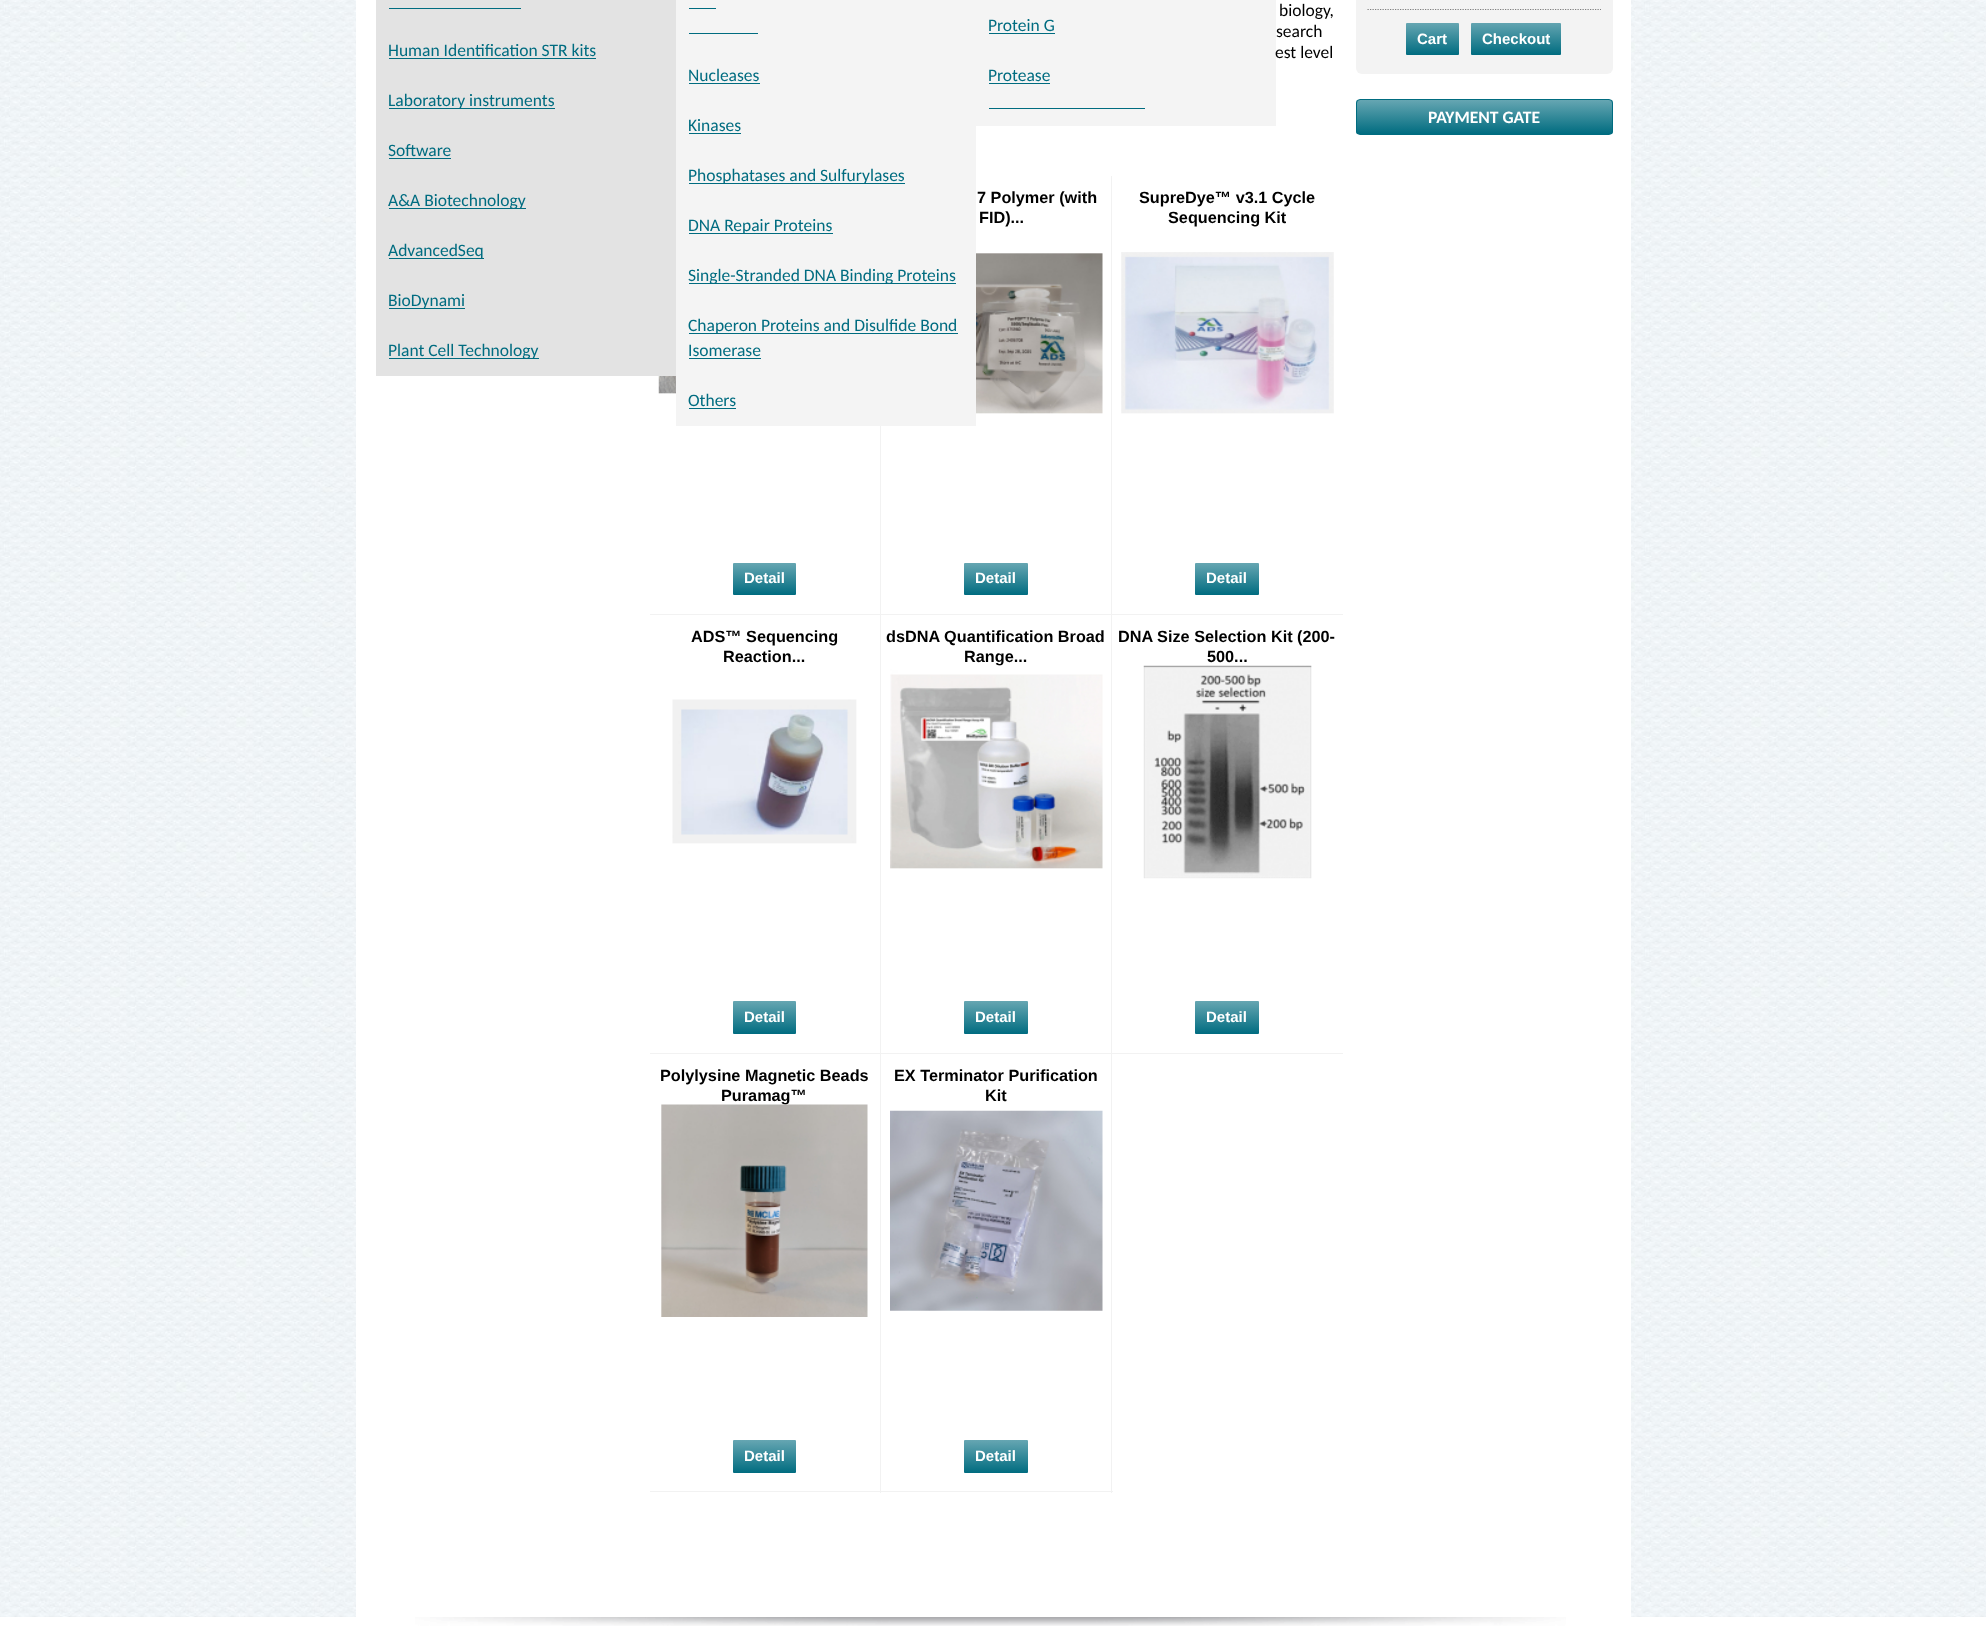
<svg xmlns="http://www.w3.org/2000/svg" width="1986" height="1646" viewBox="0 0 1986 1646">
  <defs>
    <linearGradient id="g1" gradientUnits="userSpaceOnUse" x1="764" y1="563" x2="764" y2="595"><stop offset="0" stop-color="#66a6b2"/><stop offset="1" stop-color="#006c80"/></linearGradient>
    <linearGradient id="g2" gradientUnits="userSpaceOnUse" x1="996" y1="563" x2="996" y2="595"><stop offset="0" stop-color="#66a6b2"/><stop offset="1" stop-color="#006c80"/></linearGradient>
    <linearGradient id="g3" gradientUnits="userSpaceOnUse" x1="1227" y1="563" x2="1227" y2="595"><stop offset="0" stop-color="#66a6b2"/><stop offset="1" stop-color="#006c80"/></linearGradient>
    <linearGradient id="g4" gradientUnits="userSpaceOnUse" x1="764" y1="1001" x2="764" y2="1034"><stop offset="0" stop-color="#66a6b2"/><stop offset="1" stop-color="#006c80"/></linearGradient>
    <linearGradient id="g5" gradientUnits="userSpaceOnUse" x1="996" y1="1001" x2="996" y2="1034"><stop offset="0" stop-color="#66a6b2"/><stop offset="1" stop-color="#006c80"/></linearGradient>
    <linearGradient id="g6" gradientUnits="userSpaceOnUse" x1="1227" y1="1001" x2="1227" y2="1034"><stop offset="0" stop-color="#66a6b2"/><stop offset="1" stop-color="#006c80"/></linearGradient>
    <linearGradient id="g7" gradientUnits="userSpaceOnUse" x1="764" y1="1440" x2="764" y2="1473"><stop offset="0" stop-color="#66a6b2"/><stop offset="1" stop-color="#006c80"/></linearGradient>
    <linearGradient id="g8" gradientUnits="userSpaceOnUse" x1="996" y1="1440" x2="996" y2="1473"><stop offset="0" stop-color="#66a6b2"/><stop offset="1" stop-color="#006c80"/></linearGradient>
    <linearGradient id="g9" gradientUnits="userSpaceOnUse" x1="1433" y1="23" x2="1433" y2="55"><stop offset="0" stop-color="#66a6b2"/><stop offset="1" stop-color="#006c80"/></linearGradient>
    <linearGradient id="g10" gradientUnits="userSpaceOnUse" x1="1516" y1="22" x2="1516" y2="55"><stop offset="0" stop-color="#66a6b2"/><stop offset="1" stop-color="#006c80"/></linearGradient>
    <clipPath id="clip1"><rect x="1356" y="99" width="257" height="36" rx="4"/></clipPath>
    <linearGradient id="g11" gradientUnits="userSpaceOnUse" x1="1484" y1="100" x2="1484" y2="134"><stop offset="0" stop-color="#66a6b2"/><stop offset="1" stop-color="#006c80"/></linearGradient>
  </defs>
  <rect width="100%" height="100%" fill="#fff"/>
  <image x="0" y="0" width="1986" height="1617" href="img/1.png"/>
  <path d="M356 0h1275v1617H356z" fill="#fff"/>
  <path d="M880 426h1v1067H880z" fill="#f2f2f2"/>
  <path d="M650 614h231v1H650z" fill="#f2f2f2"/>
  <image x="658" y="376" width="18" height="18" href="img/2.png"/>
  <rect x="733" y="563" width="63" height="32" rx="1" fill="url(#g1)"/>
  <path d="M1111 176h1v1317H1111z" fill="#f2f2f2"/>
  <path d="M881 614h462v1H881z" fill="#f2f2f2"/>
  <image x="976" y="253" width="127" height="161" href="img/3.png"/>
  <rect x="964" y="563" width="64" height="32" rx="1" fill="url(#g2)"/>
  <image x="1121" y="252" width="213" height="162" href="img/4.png"/>
  <rect x="1195" y="563" width="64" height="32" rx="1" fill="url(#g3)"/>
  <path d="M650 1053h693v1H650z" fill="#f2f2f2"/>
  <image x="672" y="699" width="185" height="145" href="img/5.png"/>
  <rect x="733" y="1001" width="63" height="33" rx="1" fill="url(#g4)"/>
  <rect x="964" y="1001" width="64" height="33" rx="1" fill="url(#g5)"/>
  <image x="1143" y="665" width="169" height="214" href="img/7.png"/>
  <rect x="1195" y="1001" width="64" height="33" rx="1" fill="url(#g6)"/>
  <path d="M650 1491h463v1H650z" fill="#f2f2f2"/>
  <rect x="733" y="1440" width="63" height="33" rx="1" fill="url(#g7)"/>
  <image x="890" y="1110" width="213" height="201" href="img/9.png"/>
  <rect x="964" y="1440" width="64" height="33" rx="1" fill="url(#g8)"/>
  <rect x="1356" y="-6" width="257" height="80" rx="6" fill="#f3f3f3"/>
  <path d="M1367.5 9.5H1601" fill="none" stroke="#7f7f7f" stroke-width="1.2" stroke-dasharray="1.25 1.25"/>
  <rect x="1406" y="23" width="53" height="32" rx="1" fill="url(#g9)"/>
  <rect x="1471" y="23" width="90" height="32" rx="1" fill="url(#g10)"/>
  <g clip-path="url(#clip1)">
    <path d="M1356 100h257v34H1356z" fill="url(#g11)"/>
  </g>
  <rect x="1356.5" y="99.5" width="256" height="35" rx="3.5" fill="none" stroke="#006c80"/>
  <path d="M376 0h300v376H376z" fill="#e3e3e3"/>
  <path d="M389 8h132v1H389z" fill="#006c80"/>
  <path d="M976 0h300v126H976z" fill="#f4f4f4"/>
  <path d="M989 108h156v1H989z" fill="#006c80"/>
  <path d="M389 58h207v1H389z" fill="#006c80"/>
  <path d="M989 33h66v1H989z" fill="#006c80"/>
  <path d="M989 83h61v1H989z" fill="#006c80"/>
  <path d="M389 108h166v1H389z" fill="#006c80"/>
  <path d="M676 0h300v426H676z" fill="#f4f4f4"/>
  <path d="M689 33h69v1H689z" fill="#006c80"/>
  <path d="M689 83h71v1H689z" fill="#006c80"/>
  <path d="M689 133h52v1H689z" fill="#006c80"/>
  <path d="M689 183h216v1H689z" fill="#006c80"/>
  <path d="M689 233h144v1H689z" fill="#006c80"/>
  <path d="M689 283h267v1H689z" fill="#006c80"/>
  <path d="M689 333h269v1H689z" fill="#006c80"/>
  <path d="M689 358h72v1H689z" fill="#006c80"/>
  <path d="M689 408h47v1H689z" fill="#006c80"/>
  <path d="M389 158h62v1H389z" fill="#006c80"/>
  <path d="M389 208h137v1H389z" fill="#006c80"/>
  <path d="M389 258h95v1H389z" fill="#006c80"/>
  <path d="M689 8h27v1H689z" fill="#006c80"/>
  <path d="M389 308h76v1H389z" fill="#006c80"/>
  <path d="M389 358h150v1H389z" fill="#006c80"/>
  <image x="415" y="1617" width="1151" height="9" href="img/10.png"/>
  <g font-family="Carlito" font-size="17.5" fill="#000">
    <text x="1279" y="16">biology,</text>
    <text x="1276" y="37">search</text>
    <text x="1275" y="58">est level</text>
  </g>
  <text x="744" y="583" font-family="Liberation Sans" font-size="15" font-weight="bold" fill="#fff">Detail</text>
  <g font-family="Liberation Sans" font-size="16.25" font-weight="bold" fill="#000">
    <text x="977" y="203">7 Polymer (with</text>
    <text x="979" y="223">FID)...</text>
  </g>
  <text x="975" y="583" font-family="Liberation Sans" font-size="15" font-weight="bold" fill="#fff">Detail</text>
  <g font-family="Liberation Sans" font-size="16.25" font-weight="bold" fill="#000">
    <text x="1139" y="203">SupreDye™ v3.1 Cycle</text>
    <text x="1168" y="223">Sequencing Kit</text>
  </g>
  <text x="1206" y="583" font-family="Liberation Sans" font-size="15" font-weight="bold" fill="#fff">Detail</text>
  <g font-family="Liberation Sans" font-size="16.25" font-weight="bold" fill="#000">
    <text x="691" y="642">ADS™ Sequencing</text>
    <text x="723" y="662">Reaction...</text>
  </g>
  <text x="744" y="1022" font-family="Liberation Sans" font-size="15" font-weight="bold" fill="#fff">Detail</text>
  <g font-family="Liberation Sans" font-size="16.25" font-weight="bold" fill="#000">
    <text x="886" y="642">dsDNA Quantification Broad</text>
    <text x="964" y="662">Range...</text>
  </g>
  <image x="890" y="665" width="213" height="204" href="img/6.png"/>
  <text x="975" y="1022" font-family="Liberation Sans" font-size="15" font-weight="bold" fill="#fff">Detail</text>
  <g font-family="Liberation Sans" font-size="16.25" font-weight="bold" fill="#000">
    <text x="1118" y="642">DNA Size Selection Kit (200-</text>
    <text x="1207" y="662">500...</text>
  </g>
  <text x="1206" y="1022" font-family="Liberation Sans" font-size="15" font-weight="bold" fill="#fff">Detail</text>
  <g font-family="Liberation Sans" font-size="16.25" font-weight="bold" fill="#000">
    <text x="660" y="1081">Polylysine Magnetic Beads</text>
    <text x="721" y="1101">Puramag™</text>
  </g>
  <image x="661" y="1104" width="207" height="213" href="img/8.png"/>
  <text x="744" y="1461" font-family="Liberation Sans" font-size="15" font-weight="bold" fill="#fff">Detail</text>
  <g font-family="Liberation Sans" font-size="16.25" font-weight="bold" fill="#000">
    <text x="894" y="1081">EX Terminator Purification</text>
    <text x="985" y="1101">Kit</text>
  </g>
  <g font-family="Liberation Sans" font-size="15" font-weight="bold" fill="#fff">
    <text x="975" y="1461">Detail</text>
    <text x="1417" y="44">Cart</text>
    <text x="1482" y="44">Checkout</text>
  </g>
  <text x="1428" y="123" font-family="Carlito" font-size="17.5" font-weight="bold" fill="#fff">PAYMENT GATE</text>
  <g font-family="Carlito" font-size="17.5" fill="#006c80">
    <text x="388" y="56">Human Identification STR kits</text>
    <text x="988" y="31">Protein G</text>
    <text x="988" y="81">Protease</text>
    <text x="388" y="106">Laboratory instruments</text>
    <text x="688" y="81">Nucleases</text>
    <text x="688" y="131">Kinases</text>
    <text x="688" y="181">Phosphatases and Sulfurylases</text>
    <text x="688" y="231">DNA Repair Proteins</text>
    <text x="688" y="281">Single-Stranded DNA Binding Proteins</text>
    <text x="688" y="331">Chaperon Proteins and Disulfide Bond</text>
    <text x="688" y="356">Isomerase</text>
    <text x="688" y="406">Others</text>
    <text x="388" y="156">Software</text>
    <text x="388" y="206">A&amp;A Biotechnology</text>
    <text x="388" y="256">AdvancedSeq</text>
    <text x="388" y="306">BioDynami</text>
    <text x="388" y="356">Plant Cell Technology</text>
  </g>
</svg>
